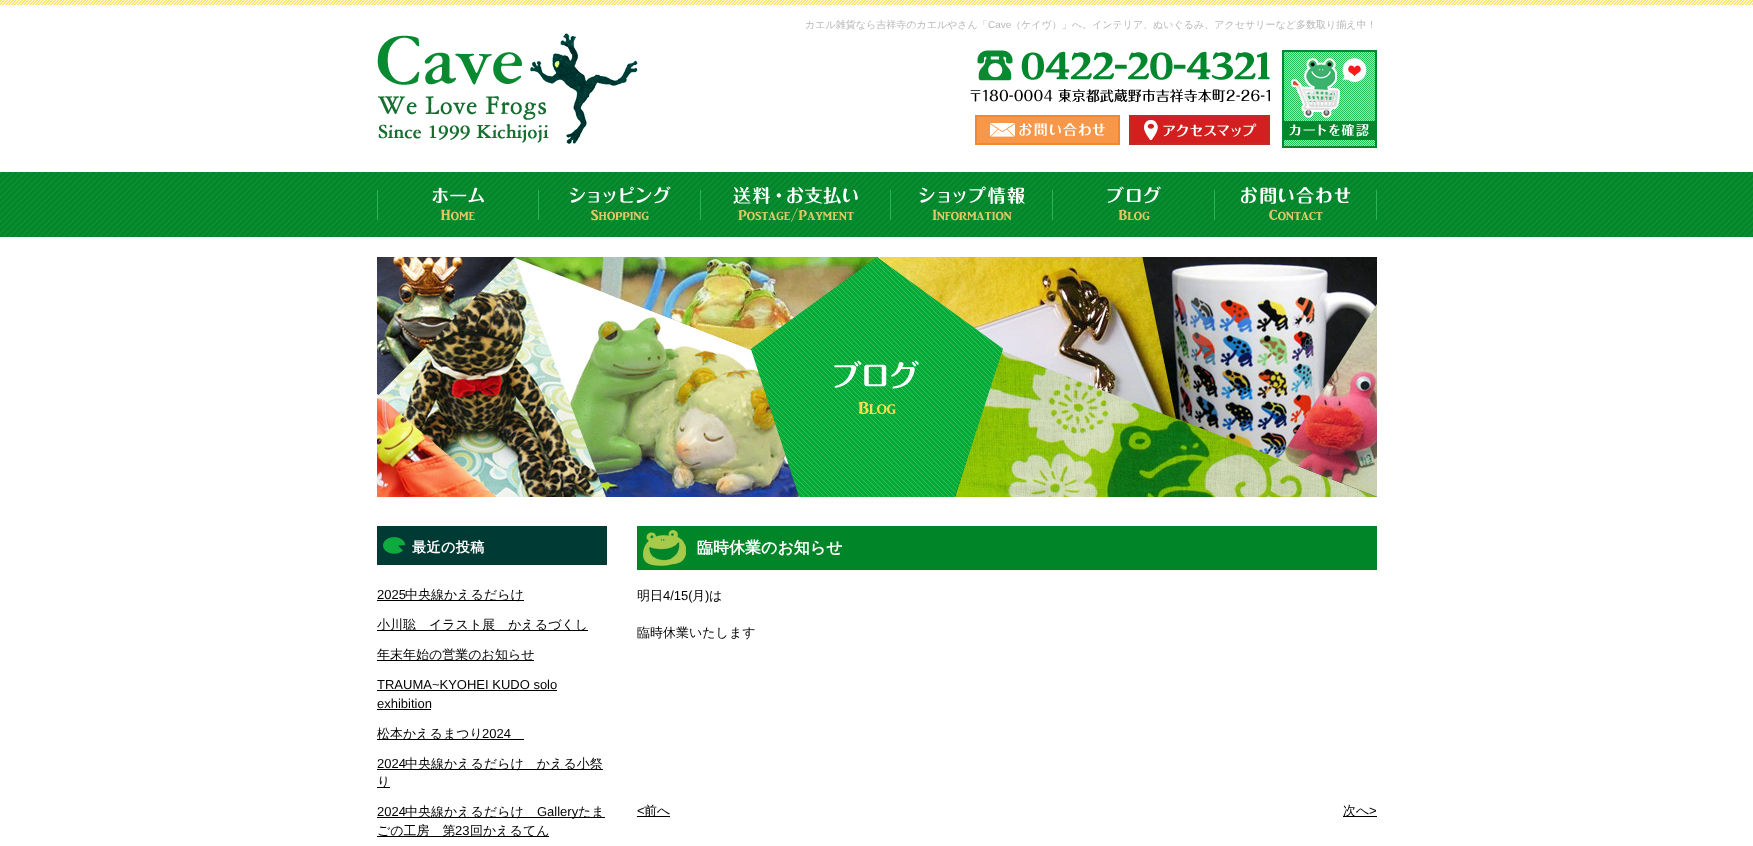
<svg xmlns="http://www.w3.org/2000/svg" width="1753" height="846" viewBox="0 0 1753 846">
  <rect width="100%" height="100%" fill="#fff"/>
  <image x="0" y="0" width="1753" height="5" href="img/1.png"/>
  <image x="377" y="33" width="261" height="111" href="img/2.png"/>
  <image x="977" y="50" width="293" height="31" href="img/3.png"/>
  <image x="970" y="89" width="300" height="14" href="img/4.png"/>
  <image x="975" y="115" width="145" height="30" href="img/5.png"/>
  <image x="1129" y="115" width="141" height="30" href="img/6.png"/>
  <image x="1282" y="50" width="95" height="98" href="img/7.png"/>
  <image x="0" y="172" width="1753" height="65" href="img/8.png"/>
  <image x="377" y="187" width="162" height="34" href="img/9.png"/>
  <image x="546" y="174" width="155" height="49" href="img/10.png"/>
  <image x="733" y="180" width="158" height="44" href="img/11.png"/>
  <image x="906" y="174" width="147" height="49" href="img/12.png"/>
  <image x="1107" y="186" width="108" height="42" href="img/13.png"/>
  <image x="1241" y="181" width="136" height="43" href="img/14.png"/>
  <image x="377" y="257" width="1000" height="240" href="img/15.png"/>
  <path d="M377 526h230v39H377z" fill="#003a34"/>
  <image x="383" y="537" width="23" height="17" href="img/16.png"/>
  <path d="M377 600h147v1H377z" fill="#000"/>
  <path d="M377 630h211v1H377z" fill="#000"/>
  <path d="M377 660h157v1H377z" fill="#000"/>
  <path d="M377 690h180v1H377z" fill="#000"/>
  <path d="M377 709h54v1H377z" fill="#000"/>
  <path d="M377 739h147v1H377z" fill="#000"/>
  <path d="M377 769h226v1H377z" fill="#000"/>
  <path d="M377 787h13v1H377z" fill="#000"/>
  <path d="M377 817h228v1H377z" fill="#000"/>
  <path d="M377 836h172v1H377z" fill="#000"/>
  <path d="M637 526h740v44H637z" fill="#008629"/>
  <image x="643" y="530" width="43" height="36" href="img/17.png"/>
  <path d="M637 816h33v1H637z" fill="#000"/>
  <path d="M1343 816h34v1H1343z" fill="#000"/>
  <text x="805" y="28" font-family="WenQuanYi Zen Hei" font-size="10" font-weight="500" fill="#b7b7b7">カエル雑貨なら吉祥寺のカエルやさん「</text>
  <text x="988" y="28" font-family="Liberation Sans" font-size="10" fill="#b7b7b7">Cave</text>
  <text x="1011" y="28" font-family="WenQuanYi Zen Hei" font-size="10" font-weight="500" fill="#b7b7b7">（ケイヴ）」へ。インテリア、ぬいぐるみ、アクセサリーなど多数取り揃え中！</text>
  <text x="412" y="552" font-family="WenQuanYi Zen Hei" font-size="14" font-weight="bold" letter-spacing="0.5" fill="#fff">最近の投稿</text>
  <text x="377" y="599" font-family="Liberation Sans" font-size="13" fill="#000">2025</text>
  <g font-family="WenQuanYi Zen Hei" font-size="13" font-weight="500" fill="#000">
    <text x="405" y="599">中央線かえるだらけ</text>
    <text x="377" y="629">小川聡　イラスト展　かえるづくし</text>
    <text x="377" y="659">年末年始の営業のお知らせ</text>
  </g>
  <g font-family="Liberation Sans" font-size="13" fill="#000">
    <text x="377" y="689">TRAUMA~KYOHEI KUDO solo</text>
    <text x="377" y="708">exhibition</text>
  </g>
  <text x="377" y="738" font-family="WenQuanYi Zen Hei" font-size="13" font-weight="500" fill="#000">松本かえるまつり</text>
  <g font-family="Liberation Sans" font-size="13" fill="#000">
    <text x="482" y="738">2024</text>
    <text x="377" y="768">2024</text>
  </g>
  <g font-family="WenQuanYi Zen Hei" font-size="13" font-weight="500" fill="#000">
    <text x="405" y="768">中央線かえるだらけ　かえる小祭</text>
    <text x="377" y="786">り</text>
  </g>
  <text x="377" y="816" font-family="Liberation Sans" font-size="13" fill="#000">2024</text>
  <text x="405" y="816" font-family="WenQuanYi Zen Hei" font-size="13" font-weight="500" fill="#000">中央線かえるだらけ</text>
  <text x="537" y="816" font-family="Liberation Sans" font-size="13" fill="#000">Gallery</text>
  <g font-family="WenQuanYi Zen Hei" font-size="13" font-weight="500" fill="#000">
    <text x="578" y="816">たま</text>
    <text x="377" y="835">ごの工房　第</text>
  </g>
  <text x="455" y="835" font-family="Liberation Sans" font-size="13" fill="#000">23</text>
  <text x="470" y="835" font-family="WenQuanYi Zen Hei" font-size="13" font-weight="500" fill="#000">回かえるてん</text>
  <text x="697" y="553" font-family="WenQuanYi Zen Hei" font-size="16" font-weight="bold" fill="#fff">臨時休業のお知らせ</text>
  <text x="637" y="600" font-family="WenQuanYi Zen Hei" font-size="13" font-weight="500" fill="#000">明日</text>
  <text x="663" y="600" font-family="Liberation Sans" font-size="13" fill="#000">4/15(</text>
  <text x="692" y="600" font-family="WenQuanYi Zen Hei" font-size="13" font-weight="500" fill="#000">月</text>
  <text x="705" y="600" font-family="Liberation Sans" font-size="13" fill="#000">)</text>
  <g font-family="WenQuanYi Zen Hei" font-size="13" font-weight="500" fill="#000">
    <text x="709" y="600">は</text>
    <text x="637" y="637">臨時休業いたします</text>
  </g>
  <text x="637" y="815" font-family="Liberation Sans" font-size="13" fill="#000">&lt;</text>
  <g font-family="WenQuanYi Zen Hei" font-size="13" font-weight="500" fill="#000">
    <text x="644" y="815">前へ</text>
    <text x="1343" y="815">次へ</text>
  </g>
  <text x="1369" y="815" font-family="Liberation Sans" font-size="13" fill="#000">&gt;</text>
</svg>
